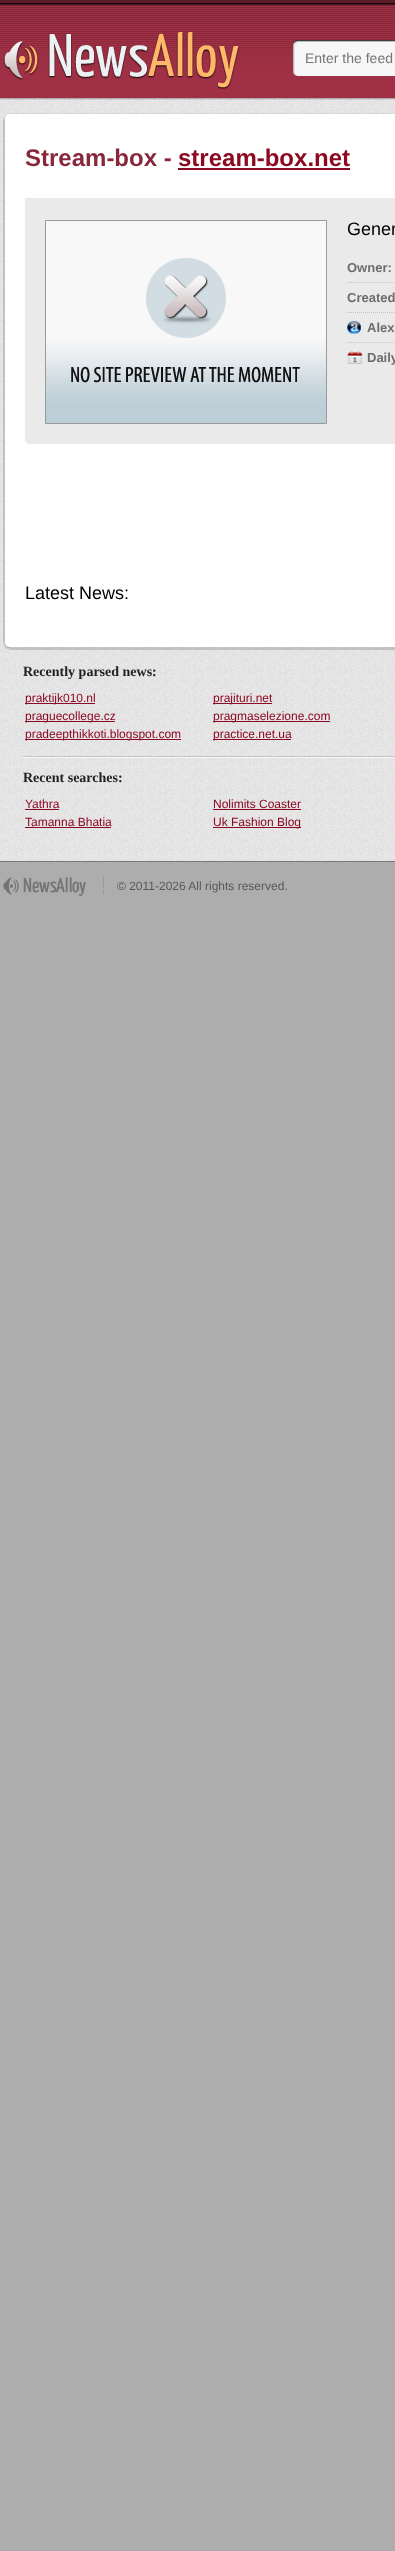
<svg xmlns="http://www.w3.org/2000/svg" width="395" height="2551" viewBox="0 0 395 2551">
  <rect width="100%" height="100%" fill="#adadad"/>
  <image x="0" y="98" width="395" height="763" href="img/5.png"/>
  <image x="0" y="0" width="395" height="100" href="img/1.png"/>
  <image x="3" y="32" width="237" height="58" href="img/2.png"/>
  <image x="293" y="40" width="4" height="36" href="img/3.png"/>
  <image x="297" y="40" width="98" height="36" href="img/4.png"/>
  <path d="M0 861h395v1H0z" fill="#797979"/>
  <path d="M3 113h392v1H3z" fill="#0000000d"/>
  <path d="M3 647h392v3H3z" fill="#00000026"/>
  <path d="M3 114h2v533H3z" fill="#00000026"/>
  <path d="M5 114h390v533H5z" fill="#fff"/>
  <image x="3" y="113" width="7" height="7" href="img/6.png"/>
  <path d="M178 168h172v2H178z" fill="#8c0922"/>
  <path d="M25 198h370v2H25z" fill="#eaeaea"/>
  <path d="M25 200H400V439C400 442 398 444 395 444H30C27 444 25 442 25 439Z" fill="#eaeaea"/>
  <path d="M45.5 220.5h281v203H45.5z" fill="none" stroke="#9a9a9a"/>
  <image x="46" y="221" width="280" height="202" href="img/7.png"/>
  <path d="M347 282.5H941M347 312.5H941" fill="none" stroke="#c1c1c1" stroke-dasharray="1 1"/>
  <image x="347" y="321" width="14" height="13" href="img/8.png"/>
  <path d="M347 342.5H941" fill="none" stroke="#c1c1c1" stroke-dasharray="1 1"/>
  <image x="347" y="351" width="16" height="13" href="img/9.png"/>
  <image x="3" y="643" width="7" height="7" href="img/10.png"/>
  <image x="23" y="756" width="372" height="2" href="img/11.png"/>
  <path d="M25 703h70v1H25z" fill="#8c0922"/>
  <path d="M213 703h59v1H213z" fill="#8c0922"/>
  <path d="M25 721h90v1H25z" fill="#8c0922"/>
  <path d="M213 721h117v1H213z" fill="#8c0922"/>
  <path d="M25 739h156v1H25z" fill="#8c0922"/>
  <path d="M213 739h78v1H213z" fill="#8c0922"/>
  <path d="M25 809h34v1H25z" fill="#8c0922"/>
  <path d="M213 809h88v1H213z" fill="#8c0922"/>
  <path d="M25 827h86v1H25z" fill="#8c0922"/>
  <path d="M213 827h88v1H213z" fill="#8c0922"/>
  <image x="3" y="877" width="83" height="19" href="img/12.png"/>
  <path d="M103.5 877V895" fill="none" stroke="#878787" stroke-dasharray="1 1"/>
  <text x="305" y="63" font-family="Liberation Sans" font-size="14" fill="#757575">Enter the feed</text>
  <text x="25" y="166" font-family="Liberation Sans" font-size="24" font-weight="bold" fill="#88293b">Stream-box -</text>
  <text x="178" y="166" font-family="Liberation Sans" font-size="24" font-weight="bold" fill="#8c0922">stream-box.net</text>
  <text x="347" y="235" font-family="Liberation Sans" font-size="18" fill="#000">Gener</text>
  <g font-family="Liberation Sans" font-size="13" font-weight="bold" fill="#6d6d6d">
    <text x="347" y="272">Owner:</text>
    <text x="347" y="302">Created</text>
    <text x="367" y="332">Alex</text>
    <text x="367" y="362">Daily</text>
  </g>
  <text x="25" y="599" font-family="Liberation Sans" font-size="18" fill="#000">Latest News:</text>
  <text x="23" y="676" font-family="Liberation Serif" font-size="14" font-weight="bold" fill="#202020">Recently parsed news:</text>
  <g font-family="Liberation Sans" font-size="12" fill="#8c0922">
    <text x="25" y="702">praktijk010.nl</text>
    <text x="213" y="702">prajituri.net</text>
    <text x="25" y="720">praguecollege.cz</text>
    <text x="213" y="720">pragmaselezione.com</text>
    <text x="25" y="738">pradeepthikkoti.blogspot.com</text>
    <text x="213" y="738">practice.net.ua</text>
  </g>
  <text x="23" y="782" font-family="Liberation Serif" font-size="14" font-weight="bold" fill="#202020">Recent searches:</text>
  <g font-family="Liberation Sans" font-size="12" fill="#8c0922">
    <text x="25" y="808">Yathra</text>
    <text x="213" y="808">Nolimits Coaster</text>
    <text x="25" y="826">Tamanna Bhatia</text>
    <text x="213" y="826">Uk Fashion Blog</text>
  </g>
  <text x="117" y="890" font-family="Liberation Sans" font-size="12" fill="#585858">© 2011-2026 All rights reserved.</text>
</svg>
